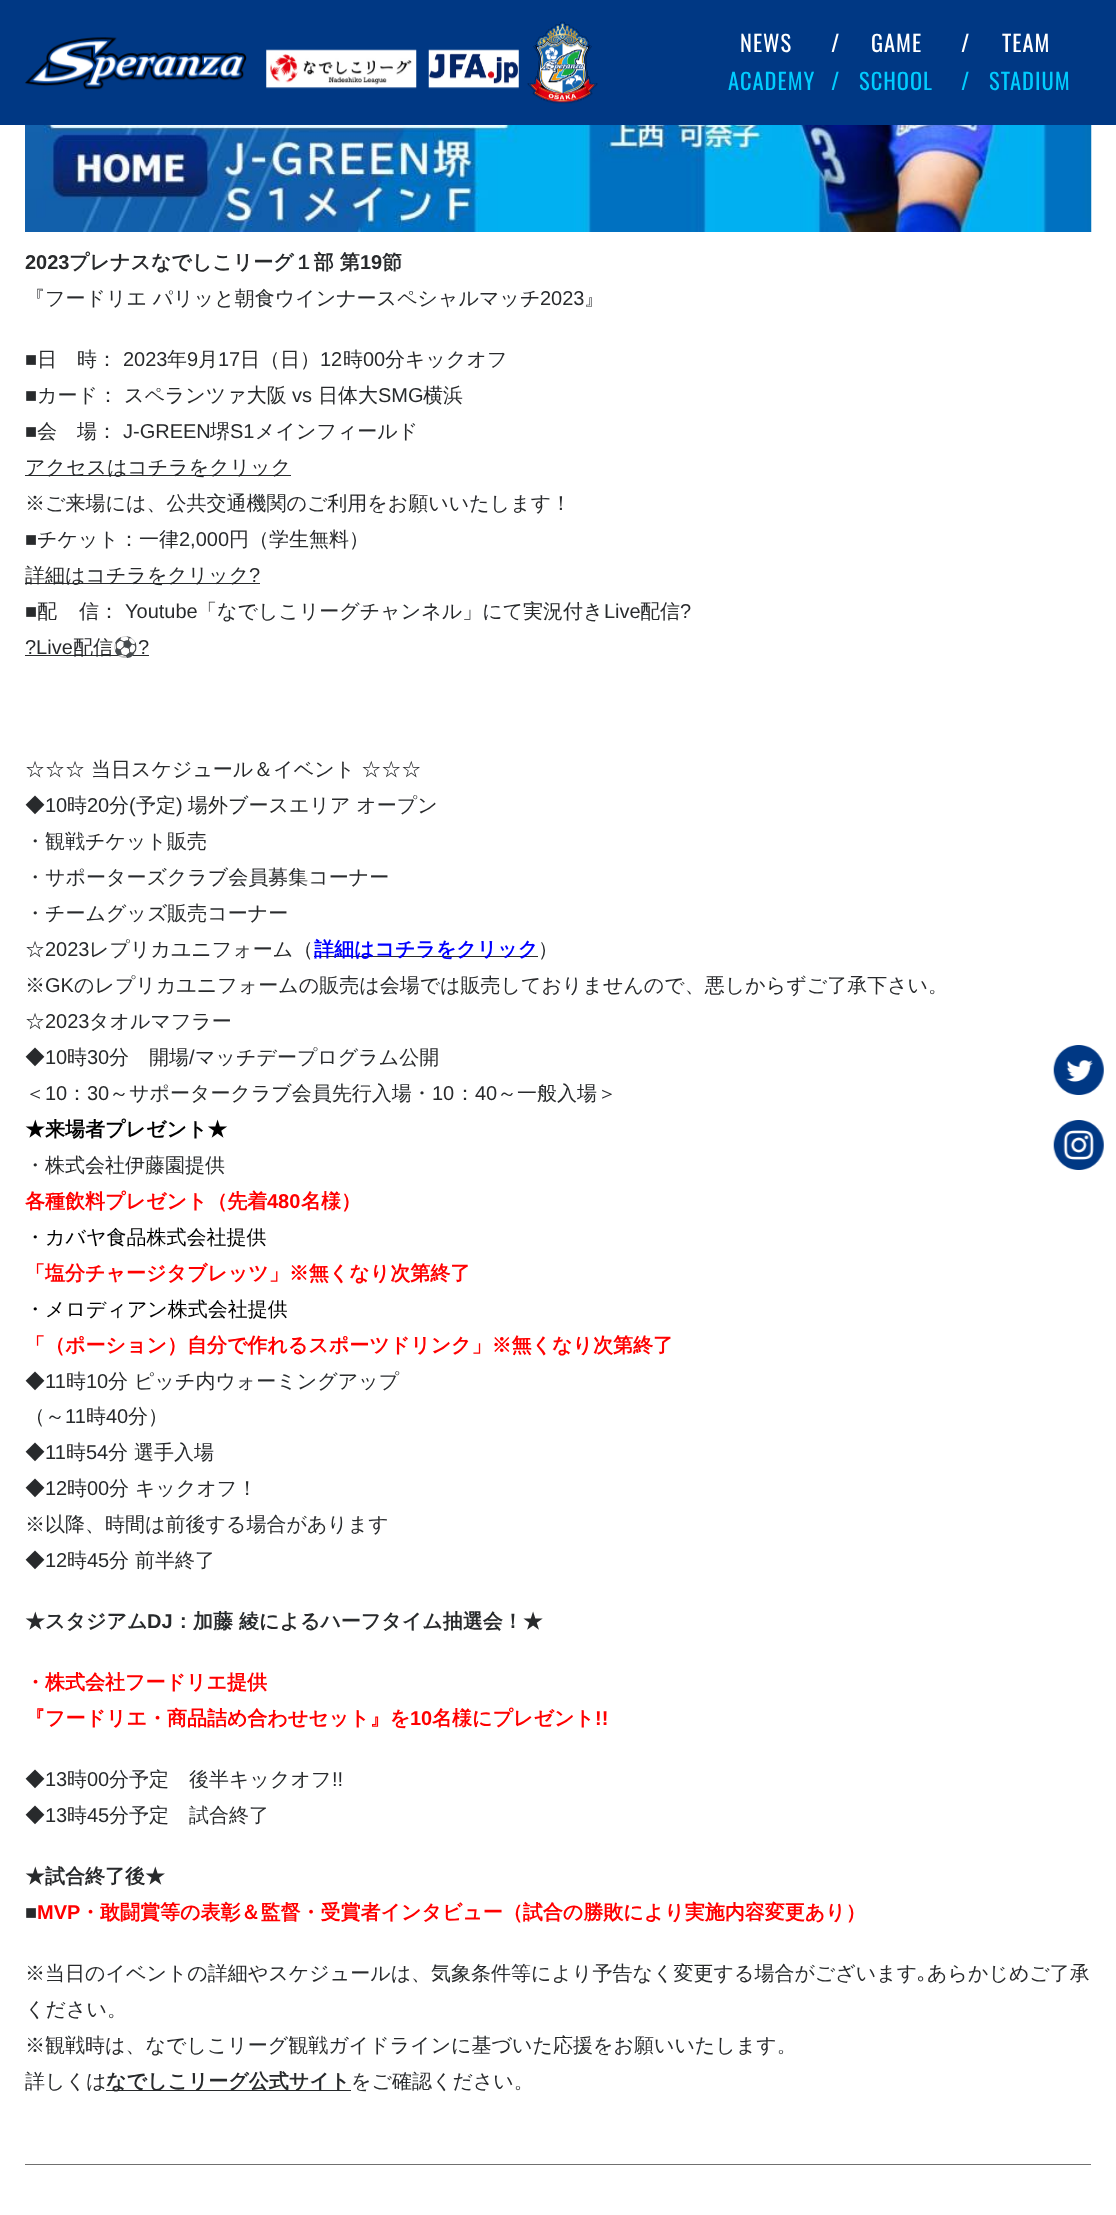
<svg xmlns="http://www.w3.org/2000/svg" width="1116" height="2215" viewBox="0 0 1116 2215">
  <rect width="100%" height="100%" fill="#fff"/>
  <path d="M0 0h1116v125H0z" fill="#003884"/>
  <image x="25" y="37" width="222" height="53" href="img/1.png"/>
  <image x="266" y="49" width="151" height="40" href="img/2.png"/>
  <image x="428" y="49" width="91" height="40" href="img/3.png"/>
  <image x="527" y="21" width="71" height="83" href="img/4.png"/>
  <path d="M25 2164h1066v1H25z" fill="#707070"/>
  <image x="25" y="125" width="1067" height="107" href="img/5.png"/>
  <path d="M25 475h266v1H25z" fill="#282a2c"/>
  <path d="M25 583h235v1H25z" fill="#282a2c"/>
  <path d="M25 655h124v1H25z" fill="#282a2c"/>
  <path d="M314 956h224v1H314z" fill="#282a2c"/>
  <path d="M106 2090h245v1H106z" fill="#282a2c"/>
  <image x="1053" y="1045" width="51" height="50" href="img/6.png"/>
  <image x="1053" y="1120" width="51" height="50" href="img/7.png"/>
  <text x="740" y="52" font-family="Oswald" font-size="22.5" letter-spacing="1" fill="#fff">NEWS</text>
  <text x="831" y="52" font-family="Oswald" font-size="22.5" fill="#fff">/</text>
  <text x="871" y="52" font-family="Oswald" font-size="22.5" letter-spacing="1" fill="#fff">GAME</text>
  <text x="961" y="52" font-family="Oswald" font-size="22.5" fill="#fff">/</text>
  <text x="1002" y="52" font-family="Oswald" font-size="22.5" letter-spacing="1" fill="#fff">TEAM</text>
  <text x="728" y="90" font-family="Oswald" font-size="22.5" letter-spacing="1" fill="#0cf">ACADEMY</text>
  <text x="831" y="90" font-family="Oswald" font-size="22.5" fill="#0cf">/</text>
  <text x="859" y="90" font-family="Oswald" font-size="22.5" letter-spacing="1" fill="#0cf">SCHOOL</text>
  <text x="961" y="90" font-family="Oswald" font-size="22.5" fill="#0cf">/</text>
  <text x="989" y="90" font-family="Oswald" font-size="22.5" letter-spacing="1" fill="#0cf">STADIUM</text>
  <text x="25" y="269" font-family="Liberation Sans" font-size="20" font-weight="bold" fill="#282a2c">2023</text>
  <text x="69" y="269" font-family="WenQuanYi Zen Hei" font-size="20" font-weight="bold" fill="#282a2c">プレナスなでしこリーグ１部 第</text>
  <text x="360" y="269" font-family="Liberation Sans" font-size="20" font-weight="bold" fill="#282a2c">19</text>
  <text x="382" y="269" font-family="WenQuanYi Zen Hei" font-size="20" font-weight="bold" fill="#282a2c">節</text>
  <text x="25" y="305" font-family="WenQuanYi Zen Hei" font-size="20" font-weight="500" fill="#282a2c">『フードリエ パリッと朝食ウインナースペシャルマッチ</text>
  <text x="540" y="305" font-family="Liberation Sans" font-size="20" fill="#282a2c">2023</text>
  <text x="584" y="305" font-family="WenQuanYi Zen Hei" font-size="20" font-weight="500" fill="#282a2c">』</text>
  <text x="25" y="366" font-family="Liberation Sans" font-size="20" fill="#282a2c">■</text>
  <text x="37" y="366" font-family="WenQuanYi Zen Hei" font-size="20" font-weight="500" fill="#282a2c">日　時：</text>
  <text x="123" y="366" font-family="Liberation Sans" font-size="20" fill="#282a2c">2023</text>
  <text x="167" y="366" font-family="WenQuanYi Zen Hei" font-size="20" font-weight="500" fill="#282a2c">年</text>
  <text x="187" y="366" font-family="Liberation Sans" font-size="20" fill="#282a2c">9</text>
  <text x="198" y="366" font-family="WenQuanYi Zen Hei" font-size="20" font-weight="500" fill="#282a2c">月</text>
  <text x="218" y="366" font-family="Liberation Sans" font-size="20" fill="#282a2c">17</text>
  <text x="240" y="366" font-family="WenQuanYi Zen Hei" font-size="20" font-weight="500" fill="#282a2c">日（日）</text>
  <text x="320" y="366" font-family="Liberation Sans" font-size="20" fill="#282a2c">12</text>
  <text x="343" y="366" font-family="WenQuanYi Zen Hei" font-size="20" font-weight="500" fill="#282a2c">時</text>
  <text x="363" y="366" font-family="Liberation Sans" font-size="20" fill="#282a2c">00</text>
  <text x="385" y="366" font-family="WenQuanYi Zen Hei" font-size="20" font-weight="500" fill="#282a2c">分キックオフ</text>
  <text x="25" y="402" font-family="Liberation Sans" font-size="20" fill="#282a2c">■</text>
  <text x="37" y="402" font-family="WenQuanYi Zen Hei" font-size="20" font-weight="500" fill="#282a2c">カード： スペランツァ大阪</text>
  <text x="292" y="402" font-family="Liberation Sans" font-size="20" fill="#282a2c">vs</text>
  <text x="318" y="402" font-family="WenQuanYi Zen Hei" font-size="20" font-weight="500" fill="#282a2c">日体大</text>
  <text x="378" y="402" font-family="Liberation Sans" font-size="20" fill="#282a2c">SMG</text>
  <text x="423" y="402" font-family="WenQuanYi Zen Hei" font-size="20" font-weight="500" fill="#282a2c">横浜</text>
  <text x="25" y="438" font-family="Liberation Sans" font-size="20" fill="#282a2c">■</text>
  <text x="37" y="438" font-family="WenQuanYi Zen Hei" font-size="20" font-weight="500" fill="#282a2c">会　場：</text>
  <text x="123" y="438" font-family="Liberation Sans" font-size="20" fill="#282a2c">J-GREEN</text>
  <text x="210" y="438" font-family="WenQuanYi Zen Hei" font-size="20" font-weight="500" fill="#282a2c">堺</text>
  <text x="230" y="438" font-family="Liberation Sans" font-size="20" fill="#282a2c">S1</text>
  <g font-family="WenQuanYi Zen Hei" font-size="20" font-weight="500" fill="#282a2c">
    <text x="255" y="438">メインフィールド</text>
    <text x="25" y="474">アクセスはコチラをクリック</text>
    <text x="25" y="510">※ご来場には、公共交通機関のご利用をお願いいたします！</text>
  </g>
  <text x="25" y="546" font-family="Liberation Sans" font-size="20" fill="#282a2c">■</text>
  <text x="37" y="546" font-family="WenQuanYi Zen Hei" font-size="20" font-weight="500" fill="#282a2c">チケット：一律</text>
  <text x="179" y="546" font-family="Liberation Sans" font-size="20" fill="#282a2c">2,000</text>
  <g font-family="WenQuanYi Zen Hei" font-size="20" font-weight="500" fill="#282a2c">
    <text x="229" y="546">円（学生無料）</text>
    <text x="25" y="582">詳細はコチラをクリック</text>
  </g>
  <g font-family="Liberation Sans" font-size="20" fill="#282a2c">
    <text x="249" y="582">?</text>
    <text x="25" y="618">■</text>
  </g>
  <g font-family="WenQuanYi Zen Hei" font-size="20" font-weight="500" fill="#282a2c">
    <text x="37" y="618">配</text>
    <text x="79" y="618">信：</text>
  </g>
  <text x="125" y="618" font-family="Liberation Sans" font-size="20" fill="#282a2c">Youtube</text>
  <text x="197" y="618" font-family="WenQuanYi Zen Hei" font-size="20" font-weight="500" fill="#282a2c">「なでしこリーグチャンネル」にて実況付き</text>
  <text x="604" y="618" font-family="Liberation Sans" font-size="20" fill="#282a2c">Live</text>
  <text x="640" y="618" font-family="WenQuanYi Zen Hei" font-size="20" font-weight="500" fill="#282a2c">配信</text>
  <g font-family="Liberation Sans" font-size="20" fill="#282a2c">
    <text x="680" y="618">?</text>
    <text x="25" y="654">?Live</text>
  </g>
  <text x="73" y="654" font-family="WenQuanYi Zen Hei" font-size="20" font-weight="500" fill="#282a2c">配信</text>
  <text x="113" y="654" font-family="Noto Color Emoji" font-size="20" fill="#282a2c">⚽️</text>
  <text x="138" y="654" font-family="Liberation Sans" font-size="20" fill="#282a2c">?</text>
  <g font-family="WenQuanYi Zen Hei" font-size="20" font-weight="500" fill="#282a2c">
    <text x="25" y="776">☆☆☆ 当日スケジュール＆イベント ☆☆☆</text>
    <text x="25" y="812">◆</text>
  </g>
  <text x="45" y="812" font-family="Liberation Sans" font-size="20" fill="#282a2c">10</text>
  <text x="67" y="812" font-family="WenQuanYi Zen Hei" font-size="20" font-weight="500" fill="#282a2c">時</text>
  <text x="87" y="812" font-family="Liberation Sans" font-size="20" fill="#282a2c">20</text>
  <text x="109" y="812" font-family="WenQuanYi Zen Hei" font-size="20" font-weight="500" fill="#282a2c">分</text>
  <text x="129" y="812" font-family="Liberation Sans" font-size="20" fill="#282a2c">(</text>
  <text x="136" y="812" font-family="WenQuanYi Zen Hei" font-size="20" font-weight="500" fill="#282a2c">予定</text>
  <text x="176" y="812" font-family="Liberation Sans" font-size="20" fill="#282a2c">)</text>
  <g font-family="WenQuanYi Zen Hei" font-size="20" font-weight="500" fill="#282a2c">
    <text x="188" y="812">場外ブースエリア オープン</text>
    <text x="25" y="848">・観戦チケット販売</text>
    <text x="25" y="884">・サポーターズクラブ会員募集コーナー</text>
    <text x="25" y="920">・チームグッズ販売コーナー</text>
    <text x="25" y="956">☆</text>
  </g>
  <text x="45" y="956" font-family="Liberation Sans" font-size="20" fill="#282a2c">2023</text>
  <text x="89" y="956" font-family="WenQuanYi Zen Hei" font-size="20" font-weight="500" fill="#282a2c">レプリカユニフォーム（</text>
  <text x="314" y="956" font-family="WenQuanYi Zen Hei" font-size="20" font-weight="bold" fill="#00f">詳細はコチラをクリック</text>
  <g font-family="WenQuanYi Zen Hei" font-size="20" font-weight="500" fill="#282a2c">
    <text x="538" y="956">）</text>
    <text x="25" y="992">※</text>
  </g>
  <text x="45" y="992" font-family="Liberation Sans" font-size="20" fill="#282a2c">GK</text>
  <g font-family="WenQuanYi Zen Hei" font-size="20" font-weight="500" fill="#282a2c">
    <text x="74" y="992">のレプリカユニフォームの販売は会場では販売しておりませんので、悪しからずご了承下さい。</text>
    <text x="25" y="1028">☆</text>
  </g>
  <text x="45" y="1028" font-family="Liberation Sans" font-size="20" fill="#282a2c">2023</text>
  <g font-family="WenQuanYi Zen Hei" font-size="20" font-weight="500" fill="#282a2c">
    <text x="89" y="1028">タオルマフラー</text>
    <text x="25" y="1064">◆</text>
  </g>
  <text x="45" y="1064" font-family="Liberation Sans" font-size="20" fill="#282a2c">10</text>
  <text x="67" y="1064" font-family="WenQuanYi Zen Hei" font-size="20" font-weight="500" fill="#282a2c">時</text>
  <text x="87" y="1064" font-family="Liberation Sans" font-size="20" fill="#282a2c">30</text>
  <text x="109" y="1064" font-family="WenQuanYi Zen Hei" font-size="20" font-weight="500" fill="#282a2c">分　開場</text>
  <text x="189" y="1064" font-family="Liberation Sans" font-size="20" fill="#282a2c">/</text>
  <g font-family="WenQuanYi Zen Hei" font-size="20" font-weight="500" fill="#282a2c">
    <text x="195" y="1064">マッチデープログラム公開</text>
    <text x="25" y="1100">＜</text>
  </g>
  <text x="45" y="1100" font-family="Liberation Sans" font-size="20" fill="#282a2c">10</text>
  <text x="67" y="1100" font-family="WenQuanYi Zen Hei" font-size="20" font-weight="500" fill="#282a2c">：</text>
  <text x="87" y="1100" font-family="Liberation Sans" font-size="20" fill="#282a2c">30</text>
  <text x="109" y="1100" font-family="WenQuanYi Zen Hei" font-size="20" font-weight="500" fill="#282a2c">～サポータークラブ会員先行入場・</text>
  <text x="432" y="1100" font-family="Liberation Sans" font-size="20" fill="#282a2c">10</text>
  <text x="455" y="1100" font-family="WenQuanYi Zen Hei" font-size="20" font-weight="500" fill="#282a2c">：</text>
  <text x="475" y="1100" font-family="Liberation Sans" font-size="20" fill="#282a2c">40</text>
  <text x="497" y="1100" font-family="WenQuanYi Zen Hei" font-size="20" font-weight="500" fill="#282a2c">～一般入場＞</text>
  <text x="25" y="1136" font-family="WenQuanYi Zen Hei" font-size="20" font-weight="bold" fill="#000">★来場者プレゼント★</text>
  <text x="25" y="1172" font-family="WenQuanYi Zen Hei" font-size="20" font-weight="500" fill="#282a2c">・株式会社伊藤園提供</text>
  <text x="25" y="1208" font-family="WenQuanYi Zen Hei" font-size="20" font-weight="bold" fill="#f00">各種飲料プレゼント（先着</text>
  <text x="267" y="1208" font-family="Liberation Sans" font-size="20" font-weight="bold" fill="#f00">480</text>
  <text x="301" y="1208" font-family="WenQuanYi Zen Hei" font-size="20" font-weight="bold" fill="#f00">名様）</text>
  <text x="25" y="1244" font-family="WenQuanYi Zen Hei" font-size="20" font-weight="500" fill="#000">・カバヤ食品株式会社提供</text>
  <text x="25" y="1280" font-family="WenQuanYi Zen Hei" font-size="20" font-weight="bold" fill="#f00">「塩分チャージタブレッツ」※無くなり次第終了</text>
  <text x="25" y="1316" font-family="WenQuanYi Zen Hei" font-size="20" font-weight="500" fill="#000">・メロディアン株式会社提供</text>
  <text x="25" y="1352" font-family="WenQuanYi Zen Hei" font-size="20" font-weight="bold" fill="#f00">「（ポーション）自分で作れるスポーツドリンク」※無くなり次第終了</text>
  <text x="25" y="1388" font-family="WenQuanYi Zen Hei" font-size="20" font-weight="500" fill="#282a2c">◆</text>
  <text x="45" y="1388" font-family="Liberation Sans" font-size="20" fill="#282a2c">11</text>
  <text x="66" y="1388" font-family="WenQuanYi Zen Hei" font-size="20" font-weight="500" fill="#282a2c">時</text>
  <text x="86" y="1388" font-family="Liberation Sans" font-size="20" fill="#282a2c">10</text>
  <g font-family="WenQuanYi Zen Hei" font-size="20" font-weight="500" fill="#282a2c">
    <text x="108" y="1388">分 ピッチ内ウォーミングアップ</text>
    <text x="25" y="1423">（～</text>
  </g>
  <text x="65" y="1423" font-family="Liberation Sans" font-size="20" fill="#282a2c">11</text>
  <text x="86" y="1423" font-family="WenQuanYi Zen Hei" font-size="20" font-weight="500" fill="#282a2c">時</text>
  <text x="106" y="1423" font-family="Liberation Sans" font-size="20" fill="#282a2c">40</text>
  <g font-family="WenQuanYi Zen Hei" font-size="20" font-weight="500" fill="#282a2c">
    <text x="128" y="1423">分）</text>
    <text x="25" y="1459">◆</text>
  </g>
  <text x="45" y="1459" font-family="Liberation Sans" font-size="20" fill="#282a2c">11</text>
  <text x="66" y="1459" font-family="WenQuanYi Zen Hei" font-size="20" font-weight="500" fill="#282a2c">時</text>
  <text x="86" y="1459" font-family="Liberation Sans" font-size="20" fill="#282a2c">54</text>
  <g font-family="WenQuanYi Zen Hei" font-size="20" font-weight="500" fill="#282a2c">
    <text x="108" y="1459">分 選手入場</text>
    <text x="25" y="1495">◆</text>
  </g>
  <text x="45" y="1495" font-family="Liberation Sans" font-size="20" fill="#282a2c">12</text>
  <text x="67" y="1495" font-family="WenQuanYi Zen Hei" font-size="20" font-weight="500" fill="#282a2c">時</text>
  <text x="87" y="1495" font-family="Liberation Sans" font-size="20" fill="#282a2c">00</text>
  <g font-family="WenQuanYi Zen Hei" font-size="20" font-weight="500" fill="#282a2c">
    <text x="109" y="1495">分 キックオフ！</text>
    <text x="25" y="1531">※以降、時間は前後する場合があります</text>
    <text x="25" y="1567">◆</text>
  </g>
  <text x="45" y="1567" font-family="Liberation Sans" font-size="20" fill="#282a2c">12</text>
  <text x="67" y="1567" font-family="WenQuanYi Zen Hei" font-size="20" font-weight="500" fill="#282a2c">時</text>
  <text x="87" y="1567" font-family="Liberation Sans" font-size="20" fill="#282a2c">45</text>
  <text x="109" y="1567" font-family="WenQuanYi Zen Hei" font-size="20" font-weight="500" fill="#282a2c">分 前半終了</text>
  <text x="25" y="1628" font-family="WenQuanYi Zen Hei" font-size="20" font-weight="bold" fill="#282a2c">★スタジアム</text>
  <text x="147" y="1628" font-family="Liberation Sans" font-size="20" font-weight="bold" fill="#282a2c">DJ</text>
  <text x="173" y="1628" font-family="WenQuanYi Zen Hei" font-size="20" font-weight="bold" fill="#282a2c">：加藤 綾によるハーフタイム抽選会！★</text>
  <g font-family="WenQuanYi Zen Hei" font-size="20" font-weight="bold" fill="#f00">
    <text x="25" y="1689">・株式会社フードリエ提供</text>
    <text x="25" y="1725">『フードリエ・商品詰め合わせセット』を</text>
  </g>
  <text x="410" y="1725" font-family="Liberation Sans" font-size="20" font-weight="bold" fill="#f00">10</text>
  <text x="432" y="1725" font-family="WenQuanYi Zen Hei" font-size="20" font-weight="bold" fill="#f00">名様にプレゼント</text>
  <text x="595" y="1725" font-family="Liberation Sans" font-size="20" font-weight="bold" fill="#f00">!!</text>
  <text x="25" y="1786" font-family="WenQuanYi Zen Hei" font-size="20" font-weight="500" fill="#282a2c">◆</text>
  <text x="45" y="1786" font-family="Liberation Sans" font-size="20" fill="#282a2c">13</text>
  <text x="67" y="1786" font-family="WenQuanYi Zen Hei" font-size="20" font-weight="500" fill="#282a2c">時</text>
  <text x="87" y="1786" font-family="Liberation Sans" font-size="20" fill="#282a2c">00</text>
  <text x="109" y="1786" font-family="WenQuanYi Zen Hei" font-size="20" font-weight="500" fill="#282a2c">分予定　後半キックオフ</text>
  <text x="332" y="1786" font-family="Liberation Sans" font-size="20" fill="#282a2c">!!</text>
  <text x="25" y="1822" font-family="WenQuanYi Zen Hei" font-size="20" font-weight="500" fill="#282a2c">◆</text>
  <text x="45" y="1822" font-family="Liberation Sans" font-size="20" fill="#282a2c">13</text>
  <text x="67" y="1822" font-family="WenQuanYi Zen Hei" font-size="20" font-weight="500" fill="#282a2c">時</text>
  <text x="87" y="1822" font-family="Liberation Sans" font-size="20" fill="#282a2c">45</text>
  <text x="109" y="1822" font-family="WenQuanYi Zen Hei" font-size="20" font-weight="500" fill="#282a2c">分予定　試合終了</text>
  <text x="25" y="1883" font-family="WenQuanYi Zen Hei" font-size="20" font-weight="bold" fill="#282a2c">★試合終了後★</text>
  <text x="25" y="1919" font-family="Liberation Sans" font-size="20" fill="#282a2c">■</text>
  <text x="37" y="1919" font-family="Liberation Sans" font-size="20" font-weight="bold" fill="#f00">MVP</text>
  <text x="80" y="1919" font-family="WenQuanYi Zen Hei" font-size="20" font-weight="bold" fill="#f00">・敢闘賞等の表彰＆監督・受賞者インタビュー（試合の勝敗により実施内容変更あり）</text>
  <text x="25" y="1980" font-family="WenQuanYi Zen Hei" font-size="20" font-weight="500" fill="#282a2c">※当日のイベントの詳細やスケジュールは、気象条件等により予告なく変更する場合がございます</text>
  <text x="917" y="1980" font-family="IPAPGothic" font-size="20" fill="#282a2c">｡</text>
  <g font-family="WenQuanYi Zen Hei" font-size="20" font-weight="500" fill="#282a2c">
    <text x="927" y="1980">あらかじめご了承</text>
    <text x="25" y="2016">ください。</text>
    <text x="25" y="2052">※観戦時は、なでしこリーグ観戦ガイドラインに基づいた応援をお願いいたします。</text>
    <text x="25" y="2088">詳しくは</text>
  </g>
  <text x="106" y="2088" font-family="WenQuanYi Zen Hei" font-size="20" font-weight="bold" fill="#282a2c">なでしこリーグ公式サイト</text>
  <text x="351" y="2088" font-family="WenQuanYi Zen Hei" font-size="20" font-weight="500" fill="#282a2c">をご確認ください。</text>
</svg>
